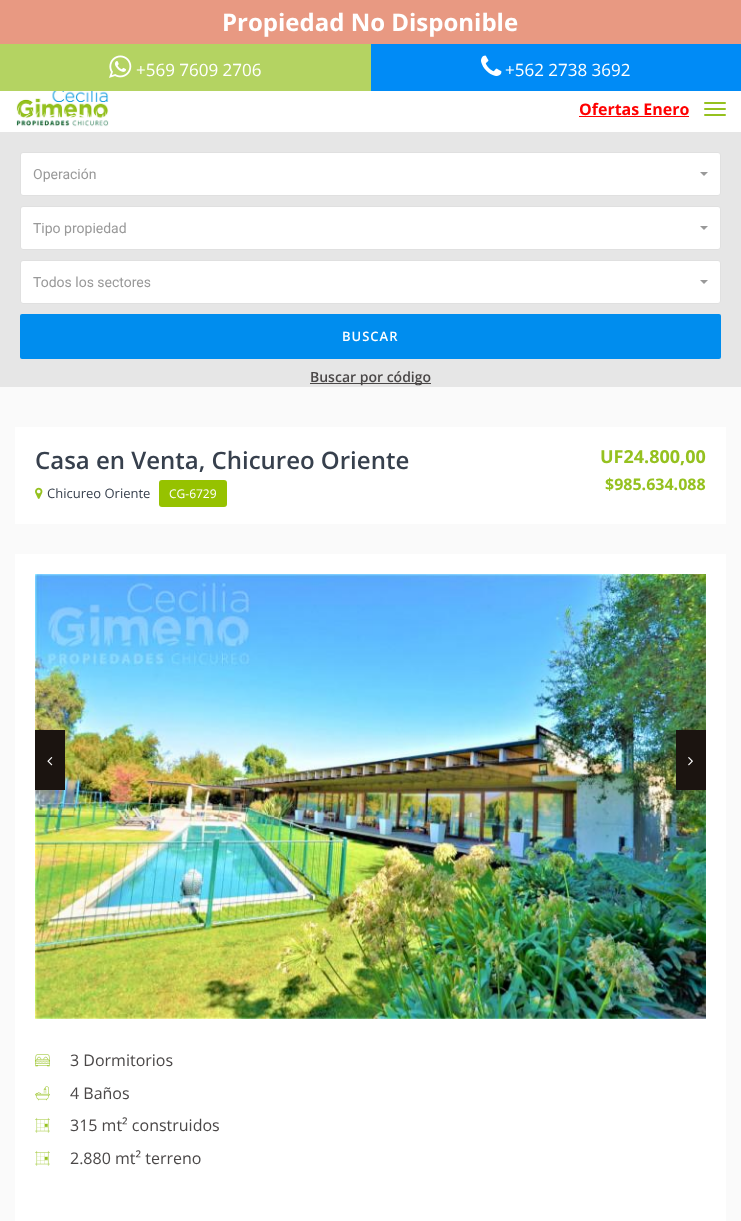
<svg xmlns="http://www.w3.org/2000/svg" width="741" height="1221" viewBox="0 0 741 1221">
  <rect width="100%" height="100%" fill="#fafafa"/>
  <path d="M0 91h741v41H0z" fill="#fff"/>
  <path d="M0 0h741v44H0z" fill="#e89982"/>
  <path d="M0 44h371v47H0z" fill="#b4d362"/>
  <image x="109" y="55" width="23" height="23" href="img/1.png"/>
  <path d="M371 44h370v47H371z" fill="#008bf6"/>
  <image x="481" y="55" width="21" height="21" href="img/2.png"/>
  <image x="16" y="91" width="93" height="36" href="img/3.png"/>
  <path d="M579 116h110v1H579z" fill="#f00"/>
  <rect x="704" y="102" width="22" height="2" rx="1" fill="#95c11f"/>
  <rect x="704" y="108" width="22" height="2" rx="1" fill="#95c11f"/>
  <rect x="704" y="114" width="22" height="2" rx="1" fill="#95c11f"/>
  <path d="M0 132h741v255H0z" fill="#e6e6e6"/>
  <rect x="20.5" y="152.5" width="700" height="43" rx="2.5" fill="#fff" stroke="#e0e0e0"/>
  <path d="M700 172H708L704 176Z" fill="#999"/>
  <rect x="20.5" y="206.5" width="700" height="43" rx="2.5" fill="#fff" stroke="#e0e0e0"/>
  <path d="M700 226H708L704 230Z" fill="#999"/>
  <rect x="20.5" y="260.5" width="700" height="43" rx="2.5" fill="#fff" stroke="#e0e0e0"/>
  <path d="M700 280H708L704 284Z" fill="#999"/>
  <rect x="20" y="314" width="701" height="45" rx="2" fill="#008dee"/>
  <path d="M310 383h121v1H310z" fill="#4a4747"/>
  <path d="M15 427h711v97H15z" fill="#fff"/>
  <image x="35" y="487" width="8" height="12" href="img/4.png"/>
  <rect x="159" y="480" width="68" height="27" rx="3" fill="#96c200"/>
  <path d="M15 554h711v667H15z" fill="#fff"/>
  <image x="35" y="574" width="671" height="445" href="img/5.png"/>
  <path d="M35 730h30v60H35z" fill="#1b1410"/>
  <image x="47" y="757" width="6" height="9" href="img/6.png"/>
  <path d="M676 730h30v60H676z" fill="#1b1410"/>
  <image x="688" y="757" width="5" height="9" href="img/7.png"/>
  <image x="35" y="1054" width="15" height="13" href="img/8.png"/>
  <image x="35" y="1086" width="15" height="15" href="img/9.png"/>
  <image x="35" y="1117" width="15" height="16" href="img/10.png"/>
  <image x="35" y="1150" width="15" height="16" href="img/10.png"/>
  <text x="222" y="31" font-family="Open Sans" font-size="24" font-weight="bold" fill="#fff">Propiedad No Disponible</text>
  <g font-family="Open Sans" font-size="17" fill="#fff">
    <text x="136" y="76">+569 7609 2706</text>
    <text x="505" y="76">+562 2738 3692</text>
  </g>
  <text x="579" y="115" font-family="Open Sans" font-size="16" font-weight="bold" fill="#f00">Ofertas Enero</text>
  <g font-family="Roboto" font-size="14" fill="#999">
    <text x="33" y="179">Operación</text>
    <text x="33" y="233">Tipo propiedad</text>
    <text x="33" y="287">Todos los sectores</text>
  </g>
  <text x="342" y="341" font-family="Open Sans" font-size="13" font-weight="600" letter-spacing="1" fill="#fff">BUSCAR</text>
  <text x="310" y="382" font-family="Open Sans" font-size="14" font-weight="600" fill="#4a4747">Buscar por código</text>
  <text x="35" y="469" font-family="Open Sans" font-size="24" font-weight="600" fill="#37404d">Casa en Venta, Chicureo Oriente</text>
  <text x="47" y="498" font-family="Open Sans" font-size="13" fill="#37404d">Chicureo Oriente</text>
  <text x="169" y="498" font-family="Open Sans" font-size="12" fill="#fff">CG-6729</text>
  <text x="600" y="463" font-family="Open Sans" font-size="18" font-weight="bold" fill="#95c11f">UF24.800,00</text>
  <text x="605" y="490" font-family="Open Sans" font-size="16" font-weight="bold" fill="#95c11f">$985.634.088</text>
  <g font-family="Open Sans" font-size="16" fill="#4a4747">
    <text x="70" y="1066">3 Dormitorios</text>
    <text x="70" y="1099">4 Baños</text>
    <text x="70" y="1131">315 mt² construidos</text>
    <text x="70" y="1164">2.880 mt² terreno</text>
  </g>
</svg>
